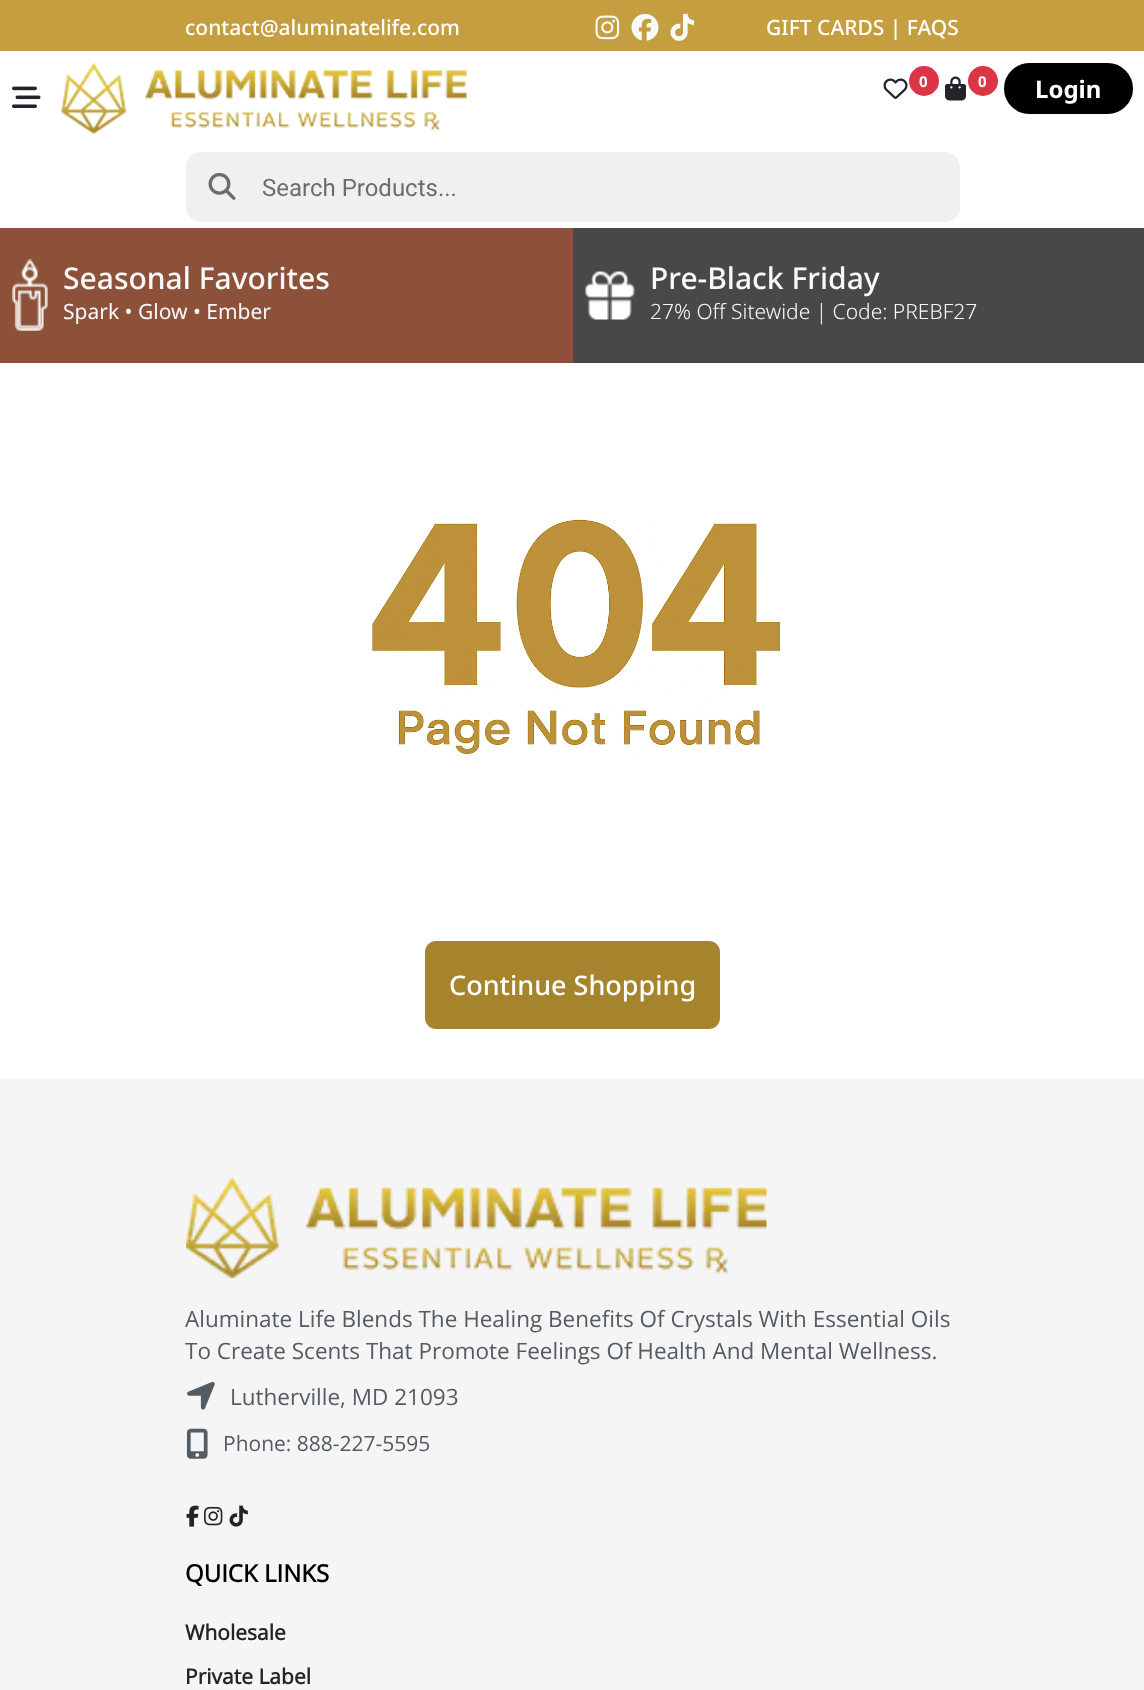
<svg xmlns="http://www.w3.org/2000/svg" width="1144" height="1690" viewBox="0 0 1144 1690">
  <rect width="100%" height="100%" fill="#fff"/>
  <path d="M0 0h1144v51H0z" fill="#c59f3f"/>
  <image x="595" y="15" width="25" height="25" href="img/1.png"/>
  <image x="631" y="13" width="28" height="28" href="img/2.png"/>
  <image x="670" y="13" width="25" height="28" href="img/3.png"/>
  <image x="12" y="86" width="29" height="22" href="img/4.png"/>
  <image x="61" y="63" width="406" height="71" href="img/5.png"/>
  <image x="883" y="78" width="25" height="21" href="img/6.png"/>
  <circle cx="924" cy="81" r="15" fill="#dc3545"/>
  <image x="945" y="76" width="21" height="25" href="img/7.png"/>
  <circle cx="983" cy="81" r="15" fill="#dc3545"/>
  <rect x="1005" y="64" width="127" height="49" rx="24.5" fill="#000" stroke="#000" stroke-width="2"/>
  <rect x="186" y="152" width="774" height="70" rx="15" fill="#f0f0f0"/>
  <image x="208" y="172" width="28" height="28" href="img/8.png"/>
  <path d="M0 228h573v135H0z" fill="#8d513a"/>
  <image x="12" y="259" width="36" height="72" href="img/9.png"/>
  <path d="M573 228h571v135H573z" fill="#494846"/>
  <image x="585" y="271" width="50" height="49" href="img/10.png"/>
  <image x="372" y="519" width="410" height="236" href="img/11.png"/>
  <rect x="425" y="941" width="295" height="88" rx="11" fill="#a6842e"/>
  <path d="M0 1079h1144v611H0z" fill="#f5f5f5"/>
  <image x="186" y="1177" width="581" height="101" href="img/12.png"/>
  <image x="187" y="1381" width="28" height="29" href="img/13.png"/>
  <image x="186" y="1428" width="22" height="31" href="img/14.png"/>
  <image x="186" y="1505" width="13" height="22" href="img/15.png"/>
  <image x="204" y="1506" width="19" height="20" href="img/16.png"/>
  <image x="229" y="1505" width="19" height="22" href="img/17.png"/>
  <g font-family="Noto Sans" font-size="21" font-weight="500" fill="#fff">
    <text x="185" y="35">contact@aluminatelife.com</text>
    <text x="766" y="35">GIFT CARDS | FAQS</text>
  </g>
  <g font-family="Noto Sans" font-size="15" font-weight="bold" fill="#fff">
    <text x="919" y="87">0</text>
    <text x="978" y="87">0</text>
  </g>
  <text x="1035" y="98" font-family="Noto Sans" font-size="24" font-weight="bold" fill="#fff">Login</text>
  <text x="262" y="196" font-family="Roboto" font-size="24" fill="#6f6b6b">Search Products...</text>
  <text x="63" y="289" font-family="Noto Sans" font-size="30" font-weight="500" fill="#f8f9fa">Seasonal Favorites</text>
  <text x="63" y="319" font-family="Noto Sans" font-size="21" fill="#f8f9fa">Spark • Glow • Ember</text>
  <text x="650" y="289" font-family="Noto Sans" font-size="30" font-weight="500" fill="#f8f9fa">Pre-Black Friday</text>
  <text x="650" y="319" font-family="Noto Sans" font-size="21" font-weight="300" fill="#f8f9fa">27% Off Sitewide | Code: PREBF27</text>
  <text x="449" y="995" font-family="Noto Sans" font-size="27" font-weight="500" fill="#fff">Continue Shopping</text>
  <g font-family="Open Sans" font-size="22.5" fill="#545b63">
    <text x="185" y="1327">Aluminate Life Blends The Healing Benefits Of Crystals With Essential Oils</text>
    <text x="185" y="1359">To Create Scents That Promote Feelings Of Health And Mental Wellness.</text>
    <text x="230" y="1405">Lutherville, MD 21093</text>
  </g>
  <text x="223" y="1451" font-family="Open Sans" font-size="21" fill="#545b63">Phone: 888-227-5595</text>
  <text x="185" y="1582" font-family="Open Sans" font-size="24" font-weight="bold" fill="#000">QUICK LINKS</text>
  <g font-family="Open Sans" font-size="21" font-weight="bold" fill="#212529">
    <text x="185" y="1640">Wholesale</text>
    <text x="185" y="1684">Private Label</text>
  </g>
</svg>
